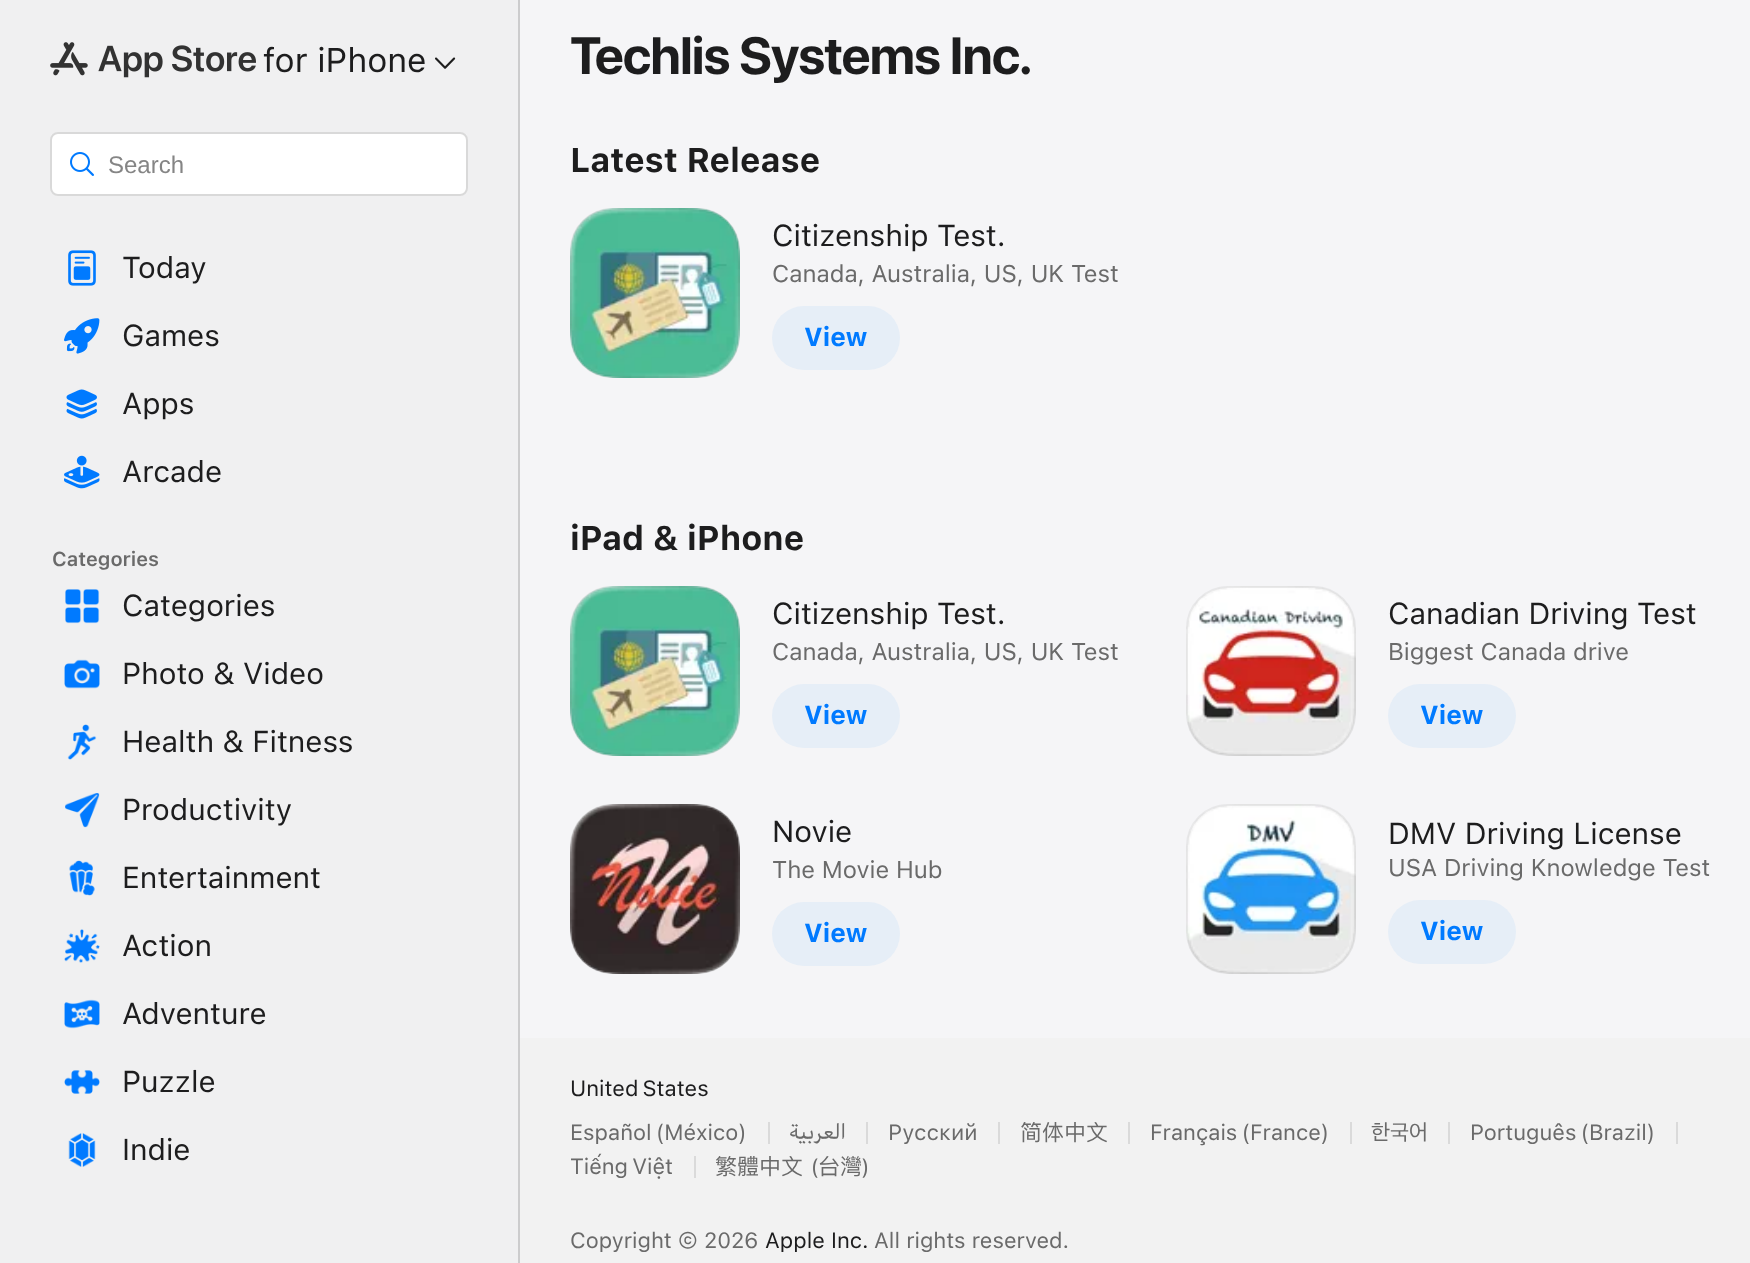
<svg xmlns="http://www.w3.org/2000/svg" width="1750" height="1263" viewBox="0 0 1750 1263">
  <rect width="100%" height="100%" fill="#f5f5f7"/>
  <path d="M0 0h518v1263H0z" fill="#f0f0f1"/>
  <path d="M518 0h2v1263H518z" fill="#cccccd"/>
  <image x="50" y="42" width="206" height="36" href="img/1.png"/>
  <image x="435" y="57" width="21" height="12" href="img/2.png"/>
  <rect x="50" y="132" width="418" height="64" rx="8" fill="#fff"/>
  <rect x="51" y="133" width="416" height="62" rx="7" fill="none" stroke="#00000026" stroke-width="2"/>
  <image x="70" y="152" width="24" height="24" href="img/3.png"/>
  <image x="68" y="250" width="28" height="36" href="img/4.png"/>
  <image x="64" y="318" width="36" height="36" href="img/5.png"/>
  <image x="66" y="389" width="31" height="30" href="img/6.png"/>
  <image x="64" y="455" width="36" height="34" href="img/7.png"/>
  <image x="65" y="589" width="35" height="35" href="img/8.png"/>
  <image x="64" y="659" width="36" height="30" href="img/9.png"/>
  <image x="67" y="724" width="30" height="36" href="img/10.png"/>
  <image x="65" y="793" width="35" height="35" href="img/11.png"/>
  <image x="69" y="860" width="26" height="36" href="img/12.png"/>
  <image x="64" y="929" width="36" height="34" href="img/13.png"/>
  <image x="64" y="999" width="36" height="30" href="img/14.png"/>
  <image x="64" y="1070" width="36" height="24" href="img/15.png"/>
  <image x="68" y="1133" width="28" height="34" href="img/16.png"/>
  <image x="570" y="208" width="170" height="170" href="img/17.png"/>
  <rect x="571" y="209" width="168" height="168" rx="41" fill="none" stroke="#8080801a" stroke-width="2"/>
  <rect x="772" y="306" width="128" height="64" rx="32" fill="#e6eef7"/>
  <image x="570" y="586" width="170" height="170" href="img/18.png"/>
  <rect x="571" y="587" width="168" height="168" rx="41" fill="none" stroke="#8080801a" stroke-width="2"/>
  <rect x="772" y="684" width="128" height="64" rx="32" fill="#e6eef7"/>
  <image x="1186" y="586" width="170" height="170" href="img/19.png"/>
  <rect x="1187" y="587" width="168" height="168" rx="41" fill="none" stroke="#8080801a" stroke-width="2"/>
  <rect x="1388" y="684" width="128" height="64" rx="32" fill="#e6eef7"/>
  <image x="570" y="804" width="170" height="170" href="img/20.png"/>
  <rect x="571" y="805" width="168" height="168" rx="41" fill="none" stroke="#8080801a" stroke-width="2"/>
  <rect x="772" y="902" width="128" height="64" rx="32" fill="#e6eef7"/>
  <image x="1186" y="804" width="170" height="170" href="img/21.png"/>
  <rect x="1187" y="805" width="168" height="168" rx="41" fill="none" stroke="#8080801a" stroke-width="2"/>
  <rect x="1388" y="900" width="128" height="64" rx="32" fill="#e6eef7"/>
  <path d="M520 1038h1230v225H520z" fill="#f2f2f2"/>
  <path d="M768 1122h2v22H768z" fill="#dadada"/>
  <path d="M866 1122h2v22H866z" fill="#dadada"/>
  <path d="M998 1122h2v22H998z" fill="#dadada"/>
  <path d="M1128 1122h2v22H1128z" fill="#dadada"/>
  <path d="M1350 1122h2v22H1350z" fill="#dadada"/>
  <path d="M1448 1122h2v22H1448z" fill="#dadada"/>
  <path d="M1676 1122h2v22H1676z" fill="#dadada"/>
  <path d="M694 1156h2v22H694z" fill="#dadada"/>
  <text x="263" y="72" font-family="SF" font-size="34" fill="#1d1d1e">for iPhone</text>
  <text x="108" y="173" font-family="Liberation Sans" font-size="24" fill="#858585">Search</text>
  <g font-family="SF" font-size="30" fill="#1d1d1e">
    <text x="122" y="278">Today</text>
    <text x="122" y="346">Games</text>
    <text x="122" y="414">Apps</text>
    <text x="122" y="482">Arcade</text>
  </g>
  <text x="52" y="566" font-family="SF" font-size="20" font-weight="600" fill="#6a6a6a">Categories</text>
  <g font-family="SF" font-size="30" fill="#1d1d1e">
    <text x="122" y="616">Categories</text>
    <text x="122" y="684">Photo &amp; Video</text>
    <text x="122" y="752">Health &amp; Fitness</text>
    <text x="122" y="820">Productivity</text>
    <text x="122" y="888">Entertainment</text>
    <text x="122" y="956">Action</text>
    <text x="122" y="1024">Adventure</text>
    <text x="122" y="1092">Puzzle</text>
    <text x="122" y="1160">Indie</text>
  </g>
  <text x="570" y="74" font-family="'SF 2'" font-size="52" font-weight="bold" letter-spacing="-1" fill="#1d1d1e">Techlis Systems Inc.</text>
  <text x="570" y="172" font-family="SF" font-size="34" font-weight="bold" fill="#1d1d1e">Latest Release</text>
  <text x="772" y="246" font-family="SF" font-size="30" fill="#1d1d1e">Citizenship Test.</text>
  <text x="772" y="282" font-family="SF" font-size="24" fill="#6a6a6a">Canada, Australia, US, UK Test</text>
  <text x="804" y="346" font-family="SF" font-size="26" font-weight="bold" fill="#007aff">View</text>
  <text x="570" y="550" font-family="SF" font-size="34" font-weight="bold" fill="#1d1d1e">iPad &amp; iPhone</text>
  <text x="772" y="624" font-family="SF" font-size="30" fill="#1d1d1e">Citizenship Test.</text>
  <text x="772" y="660" font-family="SF" font-size="24" fill="#6a6a6a">Canada, Australia, US, UK Test</text>
  <text x="804" y="724" font-family="SF" font-size="26" font-weight="bold" fill="#007aff">View</text>
  <text x="1388" y="624" font-family="SF" font-size="30" fill="#1d1d1e">Canadian Driving Test</text>
  <text x="1388" y="660" font-family="SF" font-size="24" fill="#6a6a6a">Biggest Canada drive</text>
  <text x="1420" y="724" font-family="SF" font-size="26" font-weight="bold" fill="#007aff">View</text>
  <text x="772" y="842" font-family="SF" font-size="30" fill="#1d1d1e">Novie</text>
  <text x="772" y="878" font-family="SF" font-size="24" fill="#6a6a6a">The Movie Hub</text>
  <text x="804" y="942" font-family="SF" font-size="26" font-weight="bold" fill="#007aff">View</text>
  <text x="1388" y="844" font-family="SF" font-size="30" fill="#1d1d1e">DMV Driving License</text>
  <text x="1388" y="876" font-family="SF" font-size="24" fill="#6a6a6a">USA Driving Knowledge Test</text>
  <text x="1420" y="940" font-family="SF" font-size="26" font-weight="bold" fill="#007aff">View</text>
  <text x="570" y="1096" word-spacing="-2" font-family="SF" font-size="22" fill="#1d1d1e">United States</text>
  <text x="570" y="1140" word-spacing="-2" font-family="SF" font-size="22" fill="#6a6a6a">Español (México)</text>
  <text x="846" y="1140" font-family="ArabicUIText" font-size="22" direction="rtl" fill="#6a6a6a">العربية</text>
  <text x="888" y="1140" font-family="SF" font-size="22" fill="#6a6a6a">Русский</text>
  <text x="1020" y="1140" font-family="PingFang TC" font-size="22" fill="#6a6a6a">简体中文</text>
  <text x="1150" y="1140" word-spacing="-2" font-family="SF" font-size="22" fill="#6a6a6a">Français (France)</text>
  <text x="1371" y="1140" font-family="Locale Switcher" font-size="22" fill="#6a6a6a">한국어</text>
  <g font-family="SF" font-size="22" fill="#6a6a6a">
    <text x="1470" y="1140" word-spacing="-2">Português (Brazil)</text>
    <text x="570" y="1174" word-spacing="-2">Tiếng Việt</text>
  </g>
  <text x="715" y="1174" font-family="PingFang TC" font-size="22" fill="#6a6a6a">繁體中文</text>
  <text x="811" y="1174" font-family="'SF 2'" font-size="22" fill="#6a6a6a">(</text>
  <text x="818" y="1174" font-family="PingFang TC" font-size="22" fill="#6a6a6a">台灣</text>
  <text x="862" y="1174" font-family="'SF 2'" font-size="22" fill="#6a6a6a">)</text>
  <text x="570" y="1248" font-family="SF" font-size="22" fill="#6a6a6a">Copyright © 2026</text>
  <text x="765" y="1248" font-family="SF" font-size="22" fill="#1d1d1e">Apple Inc.</text>
  <text x="874" y="1248" font-family="SF" font-size="22" fill="#6a6a6a">All rights reserved.</text>
</svg>
